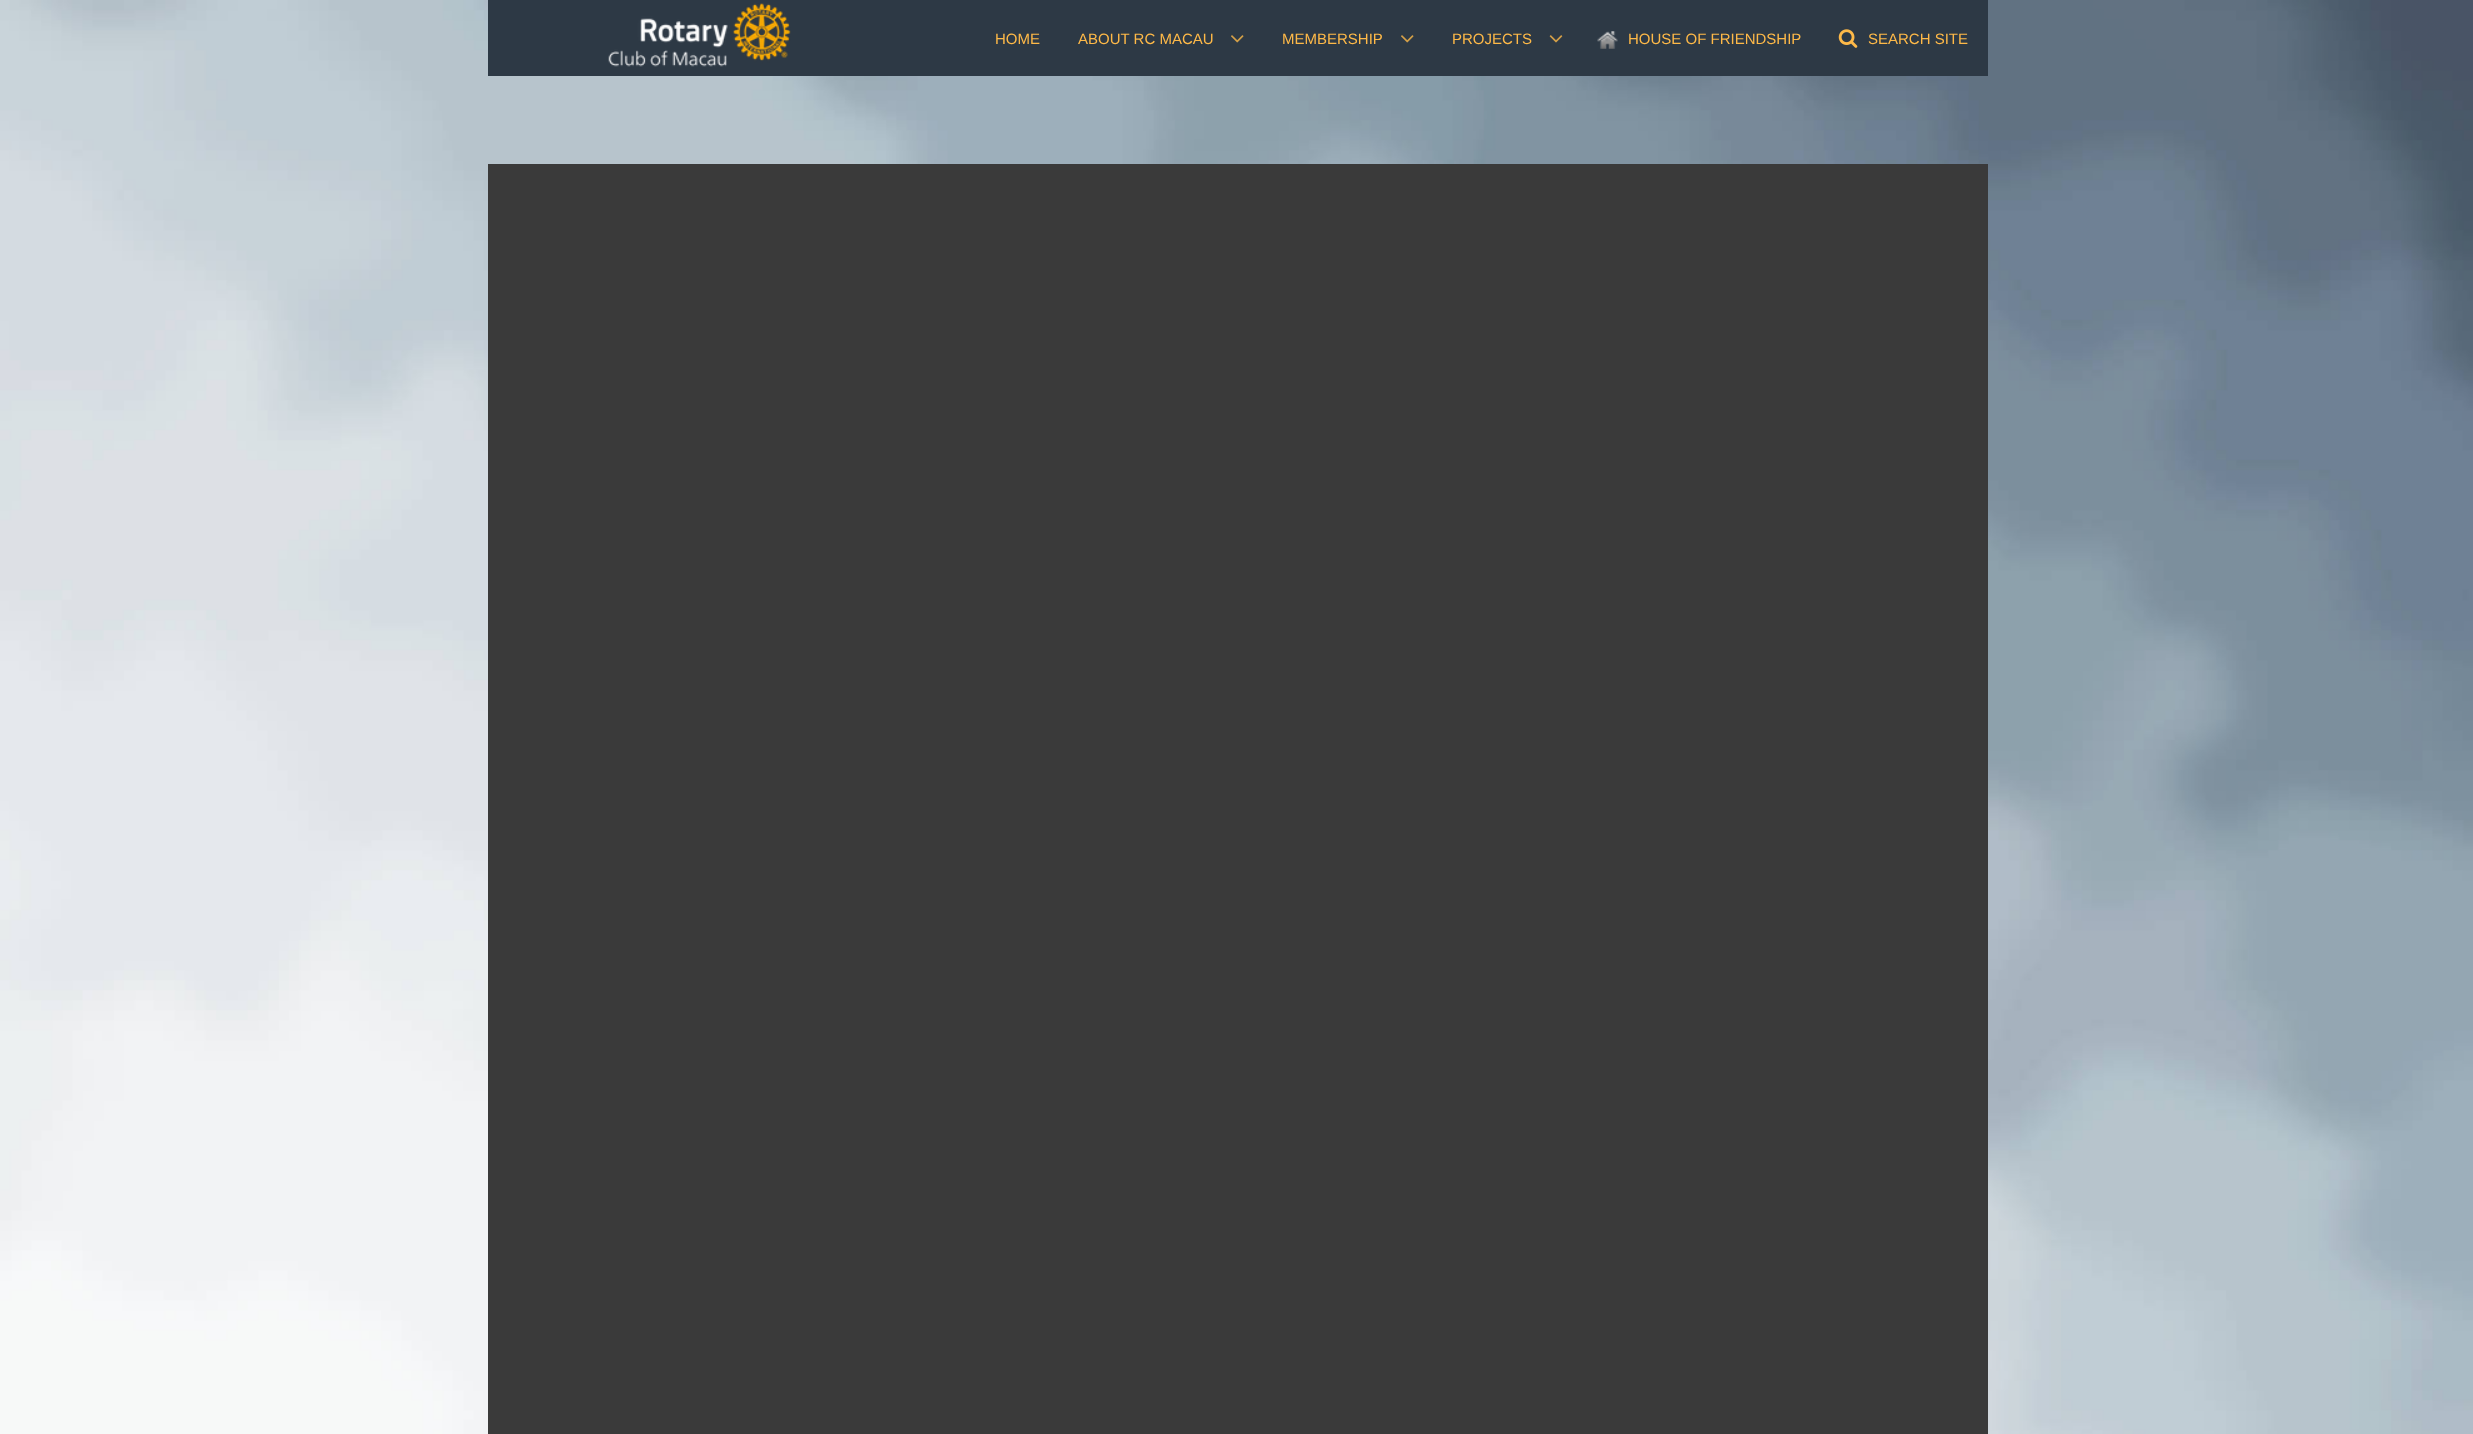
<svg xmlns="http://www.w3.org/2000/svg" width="2473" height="1434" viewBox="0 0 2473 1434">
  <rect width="100%" height="100%" fill="#fff"/>
  <image x="0" y="0" width="2473" height="1434" href="img/1.png"/>
  <path d="M488 0h1500v76H488z" fill="#2d3945"/>
  <image x="608" y="3" width="183" height="64" href="img/2.png"/>
  <image x="1231" y="35" width="13" height="8" href="img/3.png"/>
  <image x="1401" y="35" width="13" height="8" href="img/3.png"/>
  <image x="1549" y="35" width="14" height="8" href="img/4.png"/>
  <image x="1597" y="31" width="21" height="18" href="img/5.png"/>
  <image x="1838" y="29" width="20" height="19" href="img/6.png"/>
  <path d="M488 164h1500v1270H488z" fill="#3a3a3a"/>
  <g font-family="Liberation Sans" font-size="15" fill="#feb948">
    <text x="995" y="44">HOME</text>
    <text x="1078" y="44">ABOUT RC MACAU</text>
    <text x="1282" y="44">MEMBERSHIP</text>
    <text x="1452" y="44">PROJECTS</text>
    <text x="1628" y="44">HOUSE OF FRIENDSHIP</text>
    <text x="1868" y="44">SEARCH SITE</text>
  </g>
</svg>
